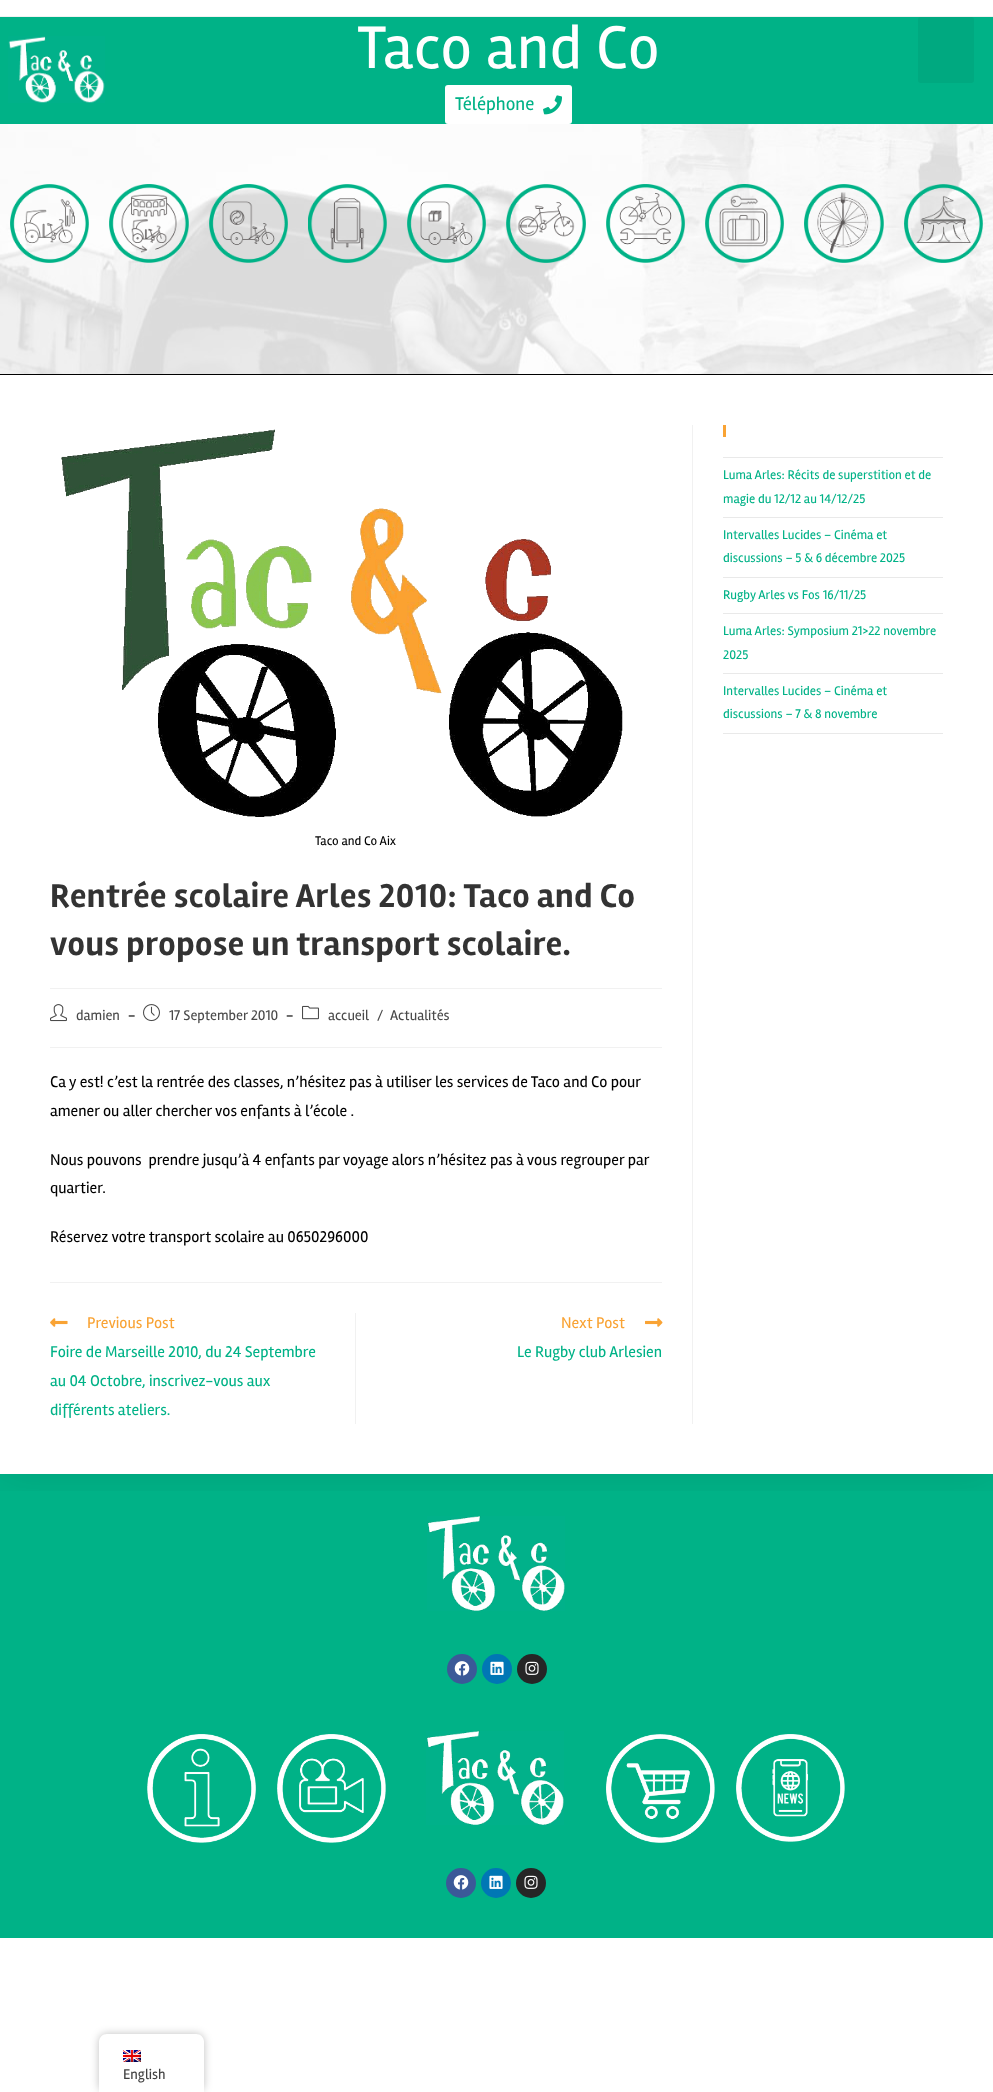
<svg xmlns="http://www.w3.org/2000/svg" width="993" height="2092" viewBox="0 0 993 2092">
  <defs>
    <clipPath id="clip1"><path d="M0 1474h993v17H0z"/></clipPath>
  </defs>
  <rect width="100%" height="100%" fill="#fff"/>
  <path d="M0 16h993v1H0z" fill="#f1f1f1"/>
  <path d="M0 1474h993v464H0z" fill="#00b287"/>
  <image x="427" y="1516" width="138" height="95" href="img/20.png"/>
  <g clip-path="url(#clip1)">
    <path d="M0 375h993v1099H0z" fill="#0000001a" filter="blur(20px)"/>
  </g>
  <path d="M0 374h993v1H0z" fill="#000"/>
  <path d="M0 17h993v107H0z" fill="#00b287"/>
  <image x="8" y="36" width="97" height="67" href="img/1.png"/>
  <rect x="445" y="85" width="127" height="39" rx="3" fill="#fff"/>
  <image x="543" y="95" width="19" height="20" href="img/2.png"/>
  <rect x="918" y="17" width="56" height="66" rx="3" fill="#00a980"/>
  <image x="0" y="124" width="993" height="250" href="img/3.png"/>
  <image x="10" y="184" width="79" height="79" href="img/4.png"/>
  <image x="109" y="184" width="80" height="79" href="img/5.png"/>
  <image x="209" y="184" width="79" height="79" href="img/6.png"/>
  <image x="308" y="184" width="79" height="79" href="img/7.png"/>
  <image x="407" y="184" width="79" height="79" href="img/8.png"/>
  <image x="506" y="184" width="80" height="79" href="img/9.png"/>
  <image x="606" y="184" width="79" height="79" href="img/10.png"/>
  <image x="705" y="184" width="79" height="79" href="img/11.png"/>
  <image x="804" y="184" width="80" height="79" href="img/12.png"/>
  <image x="904" y="184" width="79" height="79" href="img/13.png"/>
  <path d="M723 425h3v12H723z" fill="#f9a334"/>
  <path d="M723 457h220v1H723z" fill="#e9e9e9"/>
  <path d="M723 517h220v1H723z" fill="#e9e9e9"/>
  <path d="M723 577h220v1H723z" fill="#e9e9e9"/>
  <path d="M723 613h220v1H723z" fill="#e9e9e9"/>
  <path d="M723 673h220v1H723z" fill="#e9e9e9"/>
  <path d="M723 733h220v1H723z" fill="#e9e9e9"/>
  <path d="M692 425h1v999H692z" fill="#f1f1f1"/>
  <image x="61" y="429" width="562" height="388" href="img/14.png"/>
  <path d="M50 988h612v1H50z" fill="#f1f1f1"/>
  <path d="M50 1047h612v1H50z" fill="#f1f1f1"/>
  <image x="50" y="1004" width="17" height="18" href="img/15.png"/>
  <image x="143" y="1004" width="17" height="18" href="img/16.png"/>
  <image x="302" y="1005" width="17" height="15" href="img/17.png"/>
  <path d="M50 1282h612v1H50z" fill="#f1f1f1"/>
  <path d="M355 1313h1v111H355z" fill="#f1f1f1"/>
  <image x="50" y="1318" width="18" height="9" href="img/18.png"/>
  <image x="645" y="1318" width="18" height="9" href="img/19.png"/>
  <circle cx="462" cy="1669" r="15" fill="#3b5998"/>
  <image x="454" y="1661" width="16" height="15" href="img/21.png"/>
  <circle cx="497" cy="1669" r="15" fill="#0077b5"/>
  <image x="490" y="1661" width="14" height="14" href="img/22.png"/>
  <circle cx="532" cy="1669" r="15" fill="#262626"/>
  <image x="525" y="1661" width="14" height="14" href="img/23.png"/>
  <image x="147" y="1734" width="109" height="109" href="img/24.png"/>
  <image x="277" y="1734" width="109" height="109" href="img/25.png"/>
  <image x="426" y="1731" width="138" height="94" href="img/26.png"/>
  <circle cx="461" cy="1883" r="15" fill="#3b5998"/>
  <image x="453" y="1875" width="16" height="15" href="img/21.png"/>
  <circle cx="496" cy="1883" r="15" fill="#0077b5"/>
  <image x="489" y="1875" width="14" height="14" href="img/22.png"/>
  <circle cx="531" cy="1883" r="15" fill="#262626"/>
  <image x="524" y="1875" width="14" height="14" href="img/23.png"/>
  <image x="606" y="1734" width="109" height="109" href="img/27.png"/>
  <image x="736" y="1734" width="109" height="108" href="img/28.png"/>
  <rect x="99" y="2034" width="105" height="58" rx="8" fill="#00000040" filter="blur(4px)"/>
  <path d="M107 2034H196C200.5 2034 204 2037.5 204 2042V2092H99V2042C99 2037.5 102.5 2034 107 2034Z" fill="#fff"/>
  <image x="123" y="2050" width="18" height="12" href="img/29.png"/>
  <text x="357" y="68" font-family="Rambla" font-size="62" letter-spacing="0.6" fill="#fff">Taco and Co</text>
  <text x="455" y="110" font-family="Rambla" font-size="19" fill="#00b287">Téléphone</text>
  <g font-family="Rambla" font-size="13" fill="#00b287">
    <text x="723" y="479">Luma Arles: Récits de superstition et de</text>
    <text x="723" y="503">magie du 12/12 au 14/12/25</text>
    <text x="723" y="539">Intervalles Lucides – Cinéma et</text>
    <text x="723" y="562">discussions – 5 &amp; 6 décembre 2025</text>
    <text x="723" y="599">Rugby Arles vs Fos 16/11/25</text>
    <text x="723" y="635">Luma Arles: Symposium 21&gt;22 novembre</text>
    <text x="723" y="659">2025</text>
    <text x="723" y="695">Intervalles Lucides – Cinéma et</text>
    <text x="723" y="718">discussions – 7 &amp; 8 novembre</text>
  </g>
  <text x="315" y="845" font-family="Rambla" font-size="13" fill="#000">Taco and Co Aix</text>
  <g font-family="Rambla" font-size="34" font-weight="bold" letter-spacing="0.6" fill="#333">
    <text x="50" y="907">Rentrée scolaire Arles 2010: Taco and Co</text>
    <text x="50" y="955">vous propose un transport scolaire.</text>
  </g>
  <text x="76" y="1020" font-family="Rambla" font-size="14.5" fill="#4a4a4a">damien</text>
  <text x="128" y="1020" font-family="Rambla" font-size="14.5" font-weight="bold" fill="#4a4a4a">-</text>
  <text x="169" y="1020" font-family="Rambla" font-size="14.5" fill="#4a4a4a">17 September 2010</text>
  <text x="286" y="1020" font-family="Rambla" font-size="14.5" font-weight="bold" fill="#4a4a4a">-</text>
  <g font-family="Rambla" font-size="14.5" fill="#4a4a4a">
    <text x="328" y="1020">accueil</text>
    <text x="377" y="1020">/</text>
    <text x="390" y="1020">Actualités</text>
  </g>
  <g font-family="Rambla" font-size="16" fill="#000">
    <text x="50" y="1087">Ca y est! c’est la rentrée des classes, n’hésitez pas à utiliser les services de Taco and Co pour</text>
    <text x="50" y="1116">amener ou aller chercher vos enfants à l’école .</text>
    <text x="50" y="1165" xml:space="preserve">Nous pouvons  prendre jusqu’à 4 enfants par voyage alors n’hésitez pas à vous regrouper par</text>
    <text x="50" y="1193">quartier.</text>
    <text x="50" y="1242">Réservez votre transport scolaire au 0650296000</text>
  </g>
  <text x="87" y="1328" font-family="Rambla" font-size="16" fill="#f9a334">Previous Post</text>
  <g font-family="Rambla" font-size="16" fill="#00b287">
    <text x="50" y="1357">Foire de Marseille 2010, du 24 Septembre</text>
    <text x="50" y="1386">au 04 Octobre, inscrivez-vous aux</text>
    <text x="50" y="1415">différents ateliers.</text>
  </g>
  <text x="561" y="1328" font-family="Rambla" font-size="16" fill="#f9a334">Next Post</text>
  <text x="517" y="1357" font-family="Rambla" font-size="16" fill="#00b287">Le Rugby club Arlesien</text>
  <text x="123" y="2079" font-family="Rambla" font-size="14.5" fill="#404040">English</text>
</svg>
